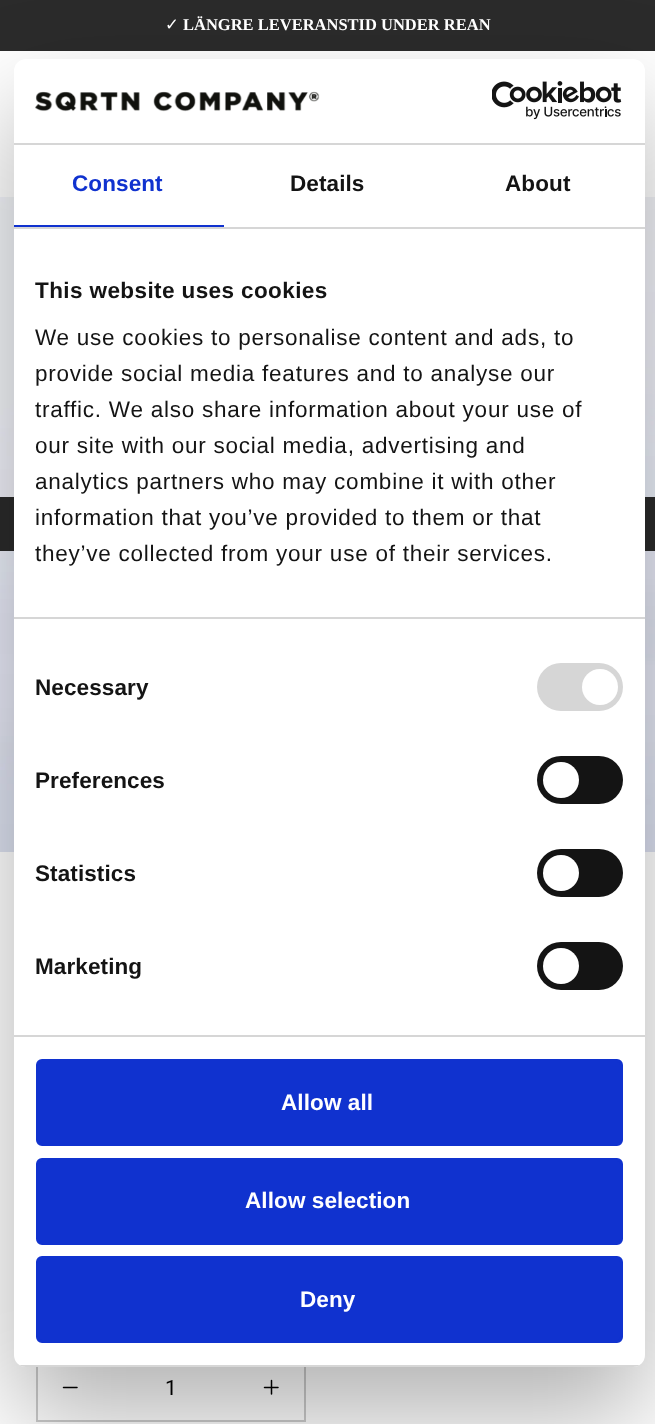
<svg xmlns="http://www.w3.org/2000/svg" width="655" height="1424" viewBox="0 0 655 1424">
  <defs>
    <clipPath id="clip1"><rect x="14" y="59" width="631" height="1308" rx="12"/></clipPath>
  </defs>
  <rect width="100%" height="100%" fill="#2b2b2b"/>
  <path d="M0 51h655v146H0z" fill="#fff"/>
  <path d="M0 852h655v572H0z" fill="#fff"/>
  <image x="0" y="197" width="655" height="655" href="img/3.png"/>
  <path d="M0 497h14v54H0z" fill="#2b2b2b"/>
  <path d="M645 497h10v54H645z" fill="#2b2b2b"/>
  <path d="M37 1354h268v67H37z" fill="none" stroke="#ccc" stroke-width="2"/>
  <path d="M63.5 1387.5H77" fill="none" stroke="#000" stroke-width="1.5" stroke-linecap="round" stroke-linejoin="round"/>
  <path d="M271.5 1380.5V1394M264.5 1387.5H278" fill="none" stroke="#000" stroke-width="1.5" stroke-linecap="round" stroke-linejoin="round"/>
  <rect x="14" y="107" width="631" height="1308" rx="12" fill="#0000004d" filter="blur(51px)"/>
  <rect x="14" y="59" width="631" height="1308" rx="12" fill="#fff"/>
  <path d="M14 143h631v2H14z" fill="#d6d6d6"/>
  <image x="35" y="91" width="285" height="21" href="img/1.png"/>
  <image x="492" y="81" width="130" height="39" href="img/2.png"/>
  <path d="M14 227h631v2H14z" fill="#d6d6d6"/>
  <path d="M14 225h210v2H14z" fill="#1032cf"/>
  <path d="M14 617h631v2H14z" fill="#d6d6d6"/>
  <path d="M14 1035h631v2H14z" fill="#d6d6d6"/>
  <rect x="537" y="663" width="86" height="48" rx="24" fill="#d6d6d6"/>
  <circle cx="600" cy="687" r="18" fill="#fff"/>
  <rect x="537" y="756" width="86" height="48" rx="24" fill="#141414"/>
  <circle cx="561" cy="780" r="18" fill="#fff"/>
  <rect x="537" y="849" width="86" height="48" rx="24" fill="#141414"/>
  <circle cx="561" cy="873" r="18" fill="#fff"/>
  <rect x="537" y="942" width="86" height="48" rx="24" fill="#141414"/>
  <circle cx="561" cy="966" r="18" fill="#fff"/>
  <g clip-path="url(#clip1)">
    <path d="M14 1365h631v2H14z" fill="#d6d6d6"/>
  </g>
  <rect x="37.5" y="1060.5" width="584" height="84" rx="4.5" fill="#1032cf" stroke="#1032cf" stroke-width="3"/>
  <rect x="37.5" y="1159.5" width="584" height="84" rx="4.5" fill="#1032cf" stroke="#1032cf" stroke-width="3"/>
  <rect x="37.5" y="1257.5" width="584" height="84" rx="4.5" fill="#1032cf" stroke="#1032cf" stroke-width="3"/>
  <text x="165" y="30" font-family="DejaVu Sans" font-size="16.5" fill="#fff">✓</text>
  <text x="183" y="30" font-family="Liberation Serif" font-size="16.5" font-weight="bold" fill="#fff">LÄNGRE LEVERANSTID UNDER REAN</text>
  <text x="72" y="191" font-family="Liberation Sans" font-size="22.5" font-weight="bold" letter-spacing="0.1" fill="#1032cf">Consent</text>
  <g font-family="Liberation Sans" font-size="22.5" font-weight="bold" letter-spacing="0.1" fill="#141414">
    <text x="290" y="191">Details</text>
    <text x="505" y="191">About</text>
  </g>
  <text x="35" y="298" font-family="Liberation Sans" font-size="22.5" font-weight="bold" letter-spacing="0.4" fill="#141414">This website uses cookies</text>
  <g font-family="Liberation Sans" font-size="22.5" letter-spacing="0.75" fill="#141414">
    <text x="35" y="345">We use cookies to personalise content and ads, to</text>
    <text x="35" y="381">provide social media features and to analyse our</text>
    <text x="35" y="417">traffic. We also share information about your use of</text>
    <text x="35" y="453">our site with our social media, advertising and</text>
    <text x="35" y="489">analytics partners who may combine it with other</text>
    <text x="35" y="525">information that you’ve provided to them or that</text>
    <text x="35" y="561">they’ve collected from your use of their services.</text>
  </g>
  <g font-family="Liberation Sans" font-size="22.5" font-weight="bold" letter-spacing="0.1" fill="#141414">
    <text x="35" y="695">Necessary</text>
    <text x="35" y="788">Preferences</text>
    <text x="35" y="881">Statistics</text>
    <text x="35" y="974">Marketing</text>
  </g>
  <g font-family="Liberation Sans" font-size="22.5" font-weight="bold" letter-spacing="0.1" fill="#fff">
    <text x="281" y="1110">Allow all</text>
    <text x="245" y="1208">Allow selection</text>
    <text x="300" y="1307">Deny</text>
  </g>
  <text x="165" y="1395" font-family="Roboto" font-size="21" fill="#000">1</text>
</svg>
